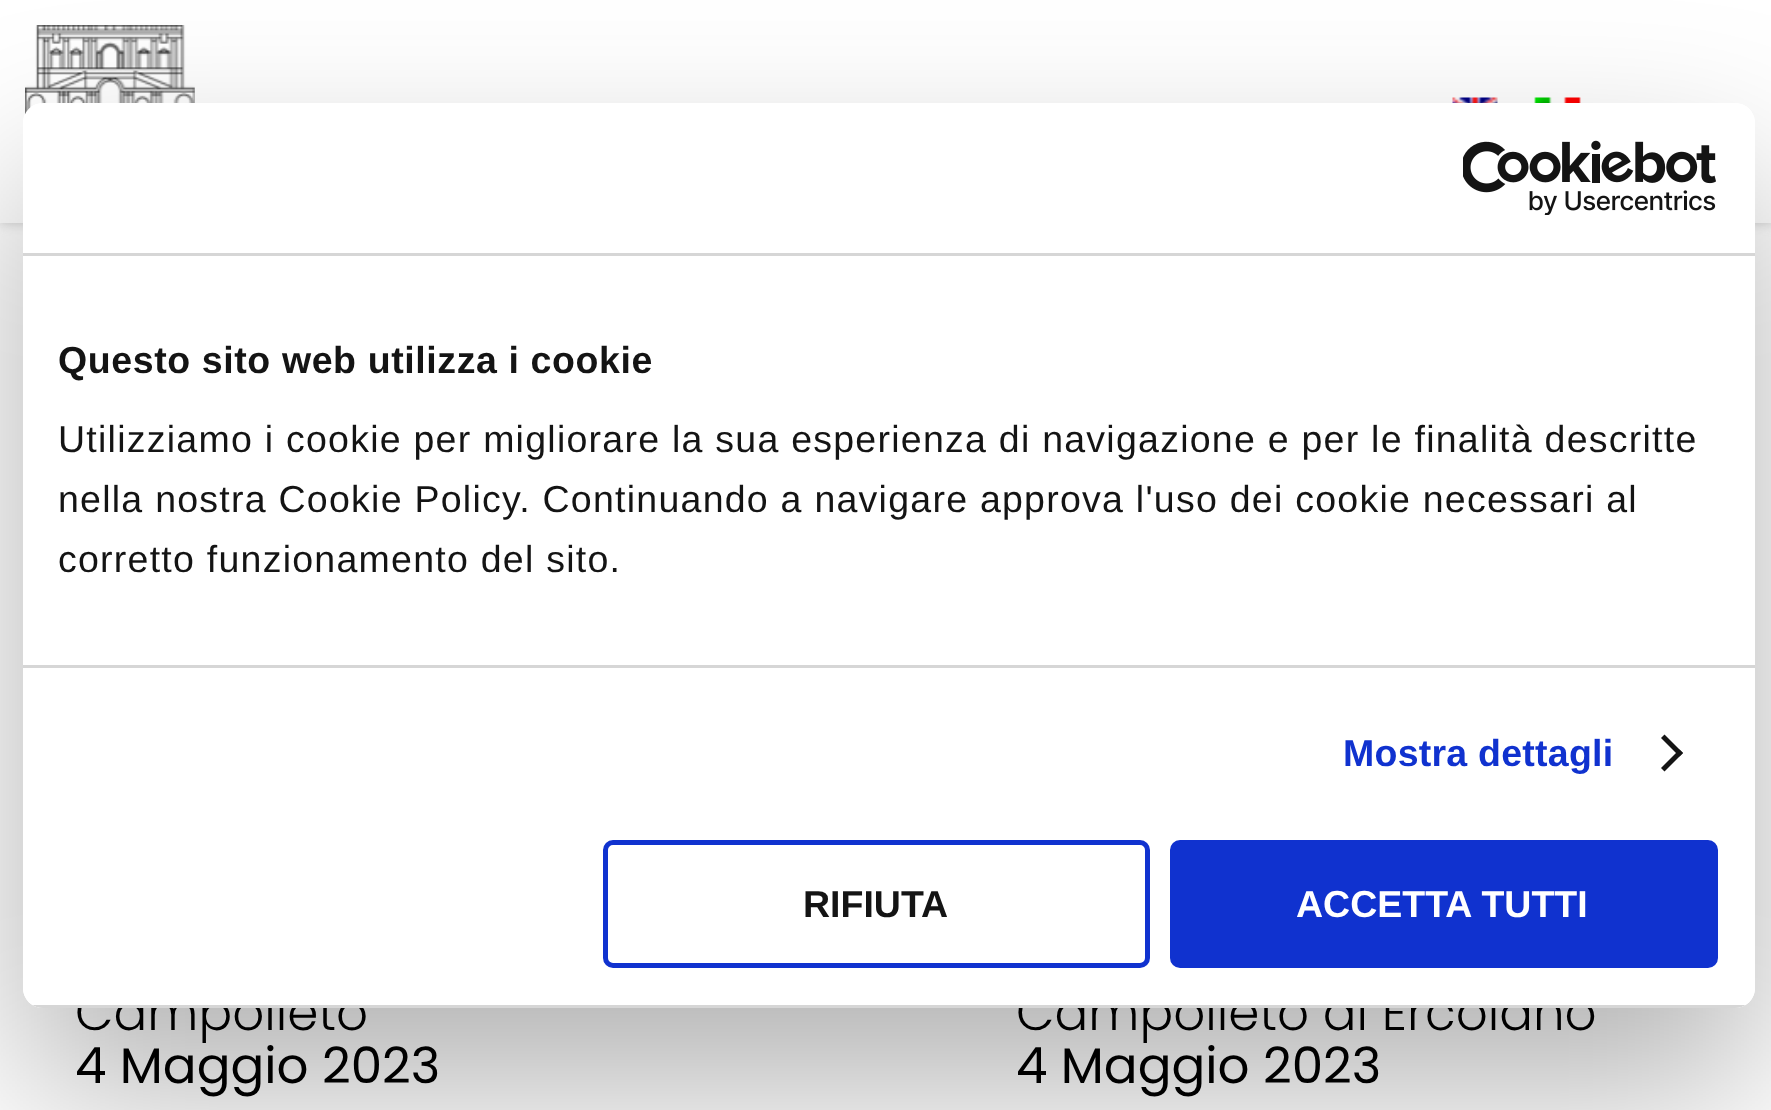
<svg xmlns="http://www.w3.org/2000/svg" width="1771" height="1110" viewBox="0 0 1771 1110">
  <defs>
    <clipPath id="clip1"><path d="M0 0H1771V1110H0ZM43 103H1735C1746 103 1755 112 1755 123V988C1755 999 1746 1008 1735 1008H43C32 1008 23 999 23 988V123C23 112 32 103 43 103Z" clip-rule="evenodd"/></clipPath>
    <clipPath id="clip2"><rect x="23" y="103" width="1732" height="905" rx="20"/></clipPath>
  </defs>
  <rect width="100%" height="100%" fill="#fff"/>
  <path d="M0 0h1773v223H0z" fill="#ccc" filter="blur(6px)"/>
  <path d="M0 0h1771v223H0z" fill="#fff"/>
  <image x="25" y="25" width="170" height="90" href="img/1.png"/>
  <image x="1452" y="97" width="46" height="6" href="img/2.png"/>
  <image x="1534" y="97" width="47" height="6" href="img/3.png"/>
  <g clip-path="url(#clip1)">
    <rect x="23" y="183" width="1732" height="905" rx="20" fill="#0000004d" filter="blur(85px)"/>
  </g>
  <text x="75" y="1030" font-family="Poppins" font-size="50" font-weight="300" fill="#000">Campolieto</text>
  <text x="75" y="1083" font-family="Poppins" font-size="50" fill="#000">4 Maggio 2023</text>
  <text x="1016" y="1030" font-family="Poppins" font-size="50" font-weight="300" fill="#000">Campolieto di Ercolano</text>
  <rect x="23" y="103" width="1732" height="905" rx="20" fill="#fff"/>
  <rect x="1172.5" y="842.5" width="543" height="123" rx="7.5" fill="#1032cf" stroke="#1032cf" stroke-width="5"/>
  <text x="1296" y="917" font-family="Liberation Sans" font-size="37.5" font-weight="bold" fill="#fff">ACCETTA TUTTI</text>
  <rect x="605.5" y="842.5" width="542" height="123" rx="7.5" fill="none" stroke="#1032cf" stroke-width="5"/>
  <text x="803" y="917" font-family="Liberation Sans" font-size="37.5" font-weight="bold" fill="#141414">RIFIUTA</text>
  <g clip-path="url(#clip2)">
    <path d="M32 1005h1714v3H32z" fill="#d6d6d6"/>
  </g>
  <path d="M1664.5 734.5L1683 753L1679.5 756.5L1661 738Z" fill="#141414"/>
  <path d="M1679.5 749.5L1683 753L1664.5 771.5L1661 768Z" fill="#141414"/>
  <g font-family="Liberation Sans" font-size="37.5" letter-spacing="1.25" fill="#141414">
    <text x="58" y="572">corretto funzionamento del sito.</text>
    <text x="58" y="512">nella nostra Cookie Policy. Continuando a navigare approva l'uso dei cookie necessari al</text>
    <text x="58" y="452">Utilizziamo i cookie per migliorare la sua esperienza di navigazione e per le finalità descritte</text>
  </g>
  <text x="58" y="373" font-family="Liberation Sans" font-size="37.5" font-weight="bold" letter-spacing="0.6" fill="#141414">Questo sito web utilizza i cookie</text>
  <path d="M23 665h1732v3H23z" fill="#d6d6d6"/>
  <text x="1343" y="766" font-family="Liberation Sans" font-size="37.5" font-weight="bold" letter-spacing="0.25" fill="#1032cf">Mostra dettagli</text>
  <image x="1463" y="140" width="253" height="75" href="img/4.png"/>
  <path d="M23 253h1732v3H23z" fill="#d6d6d6"/>
  <text x="1016" y="1083" font-family="Poppins" font-size="50" fill="#000">4 Maggio 2023</text>
</svg>
